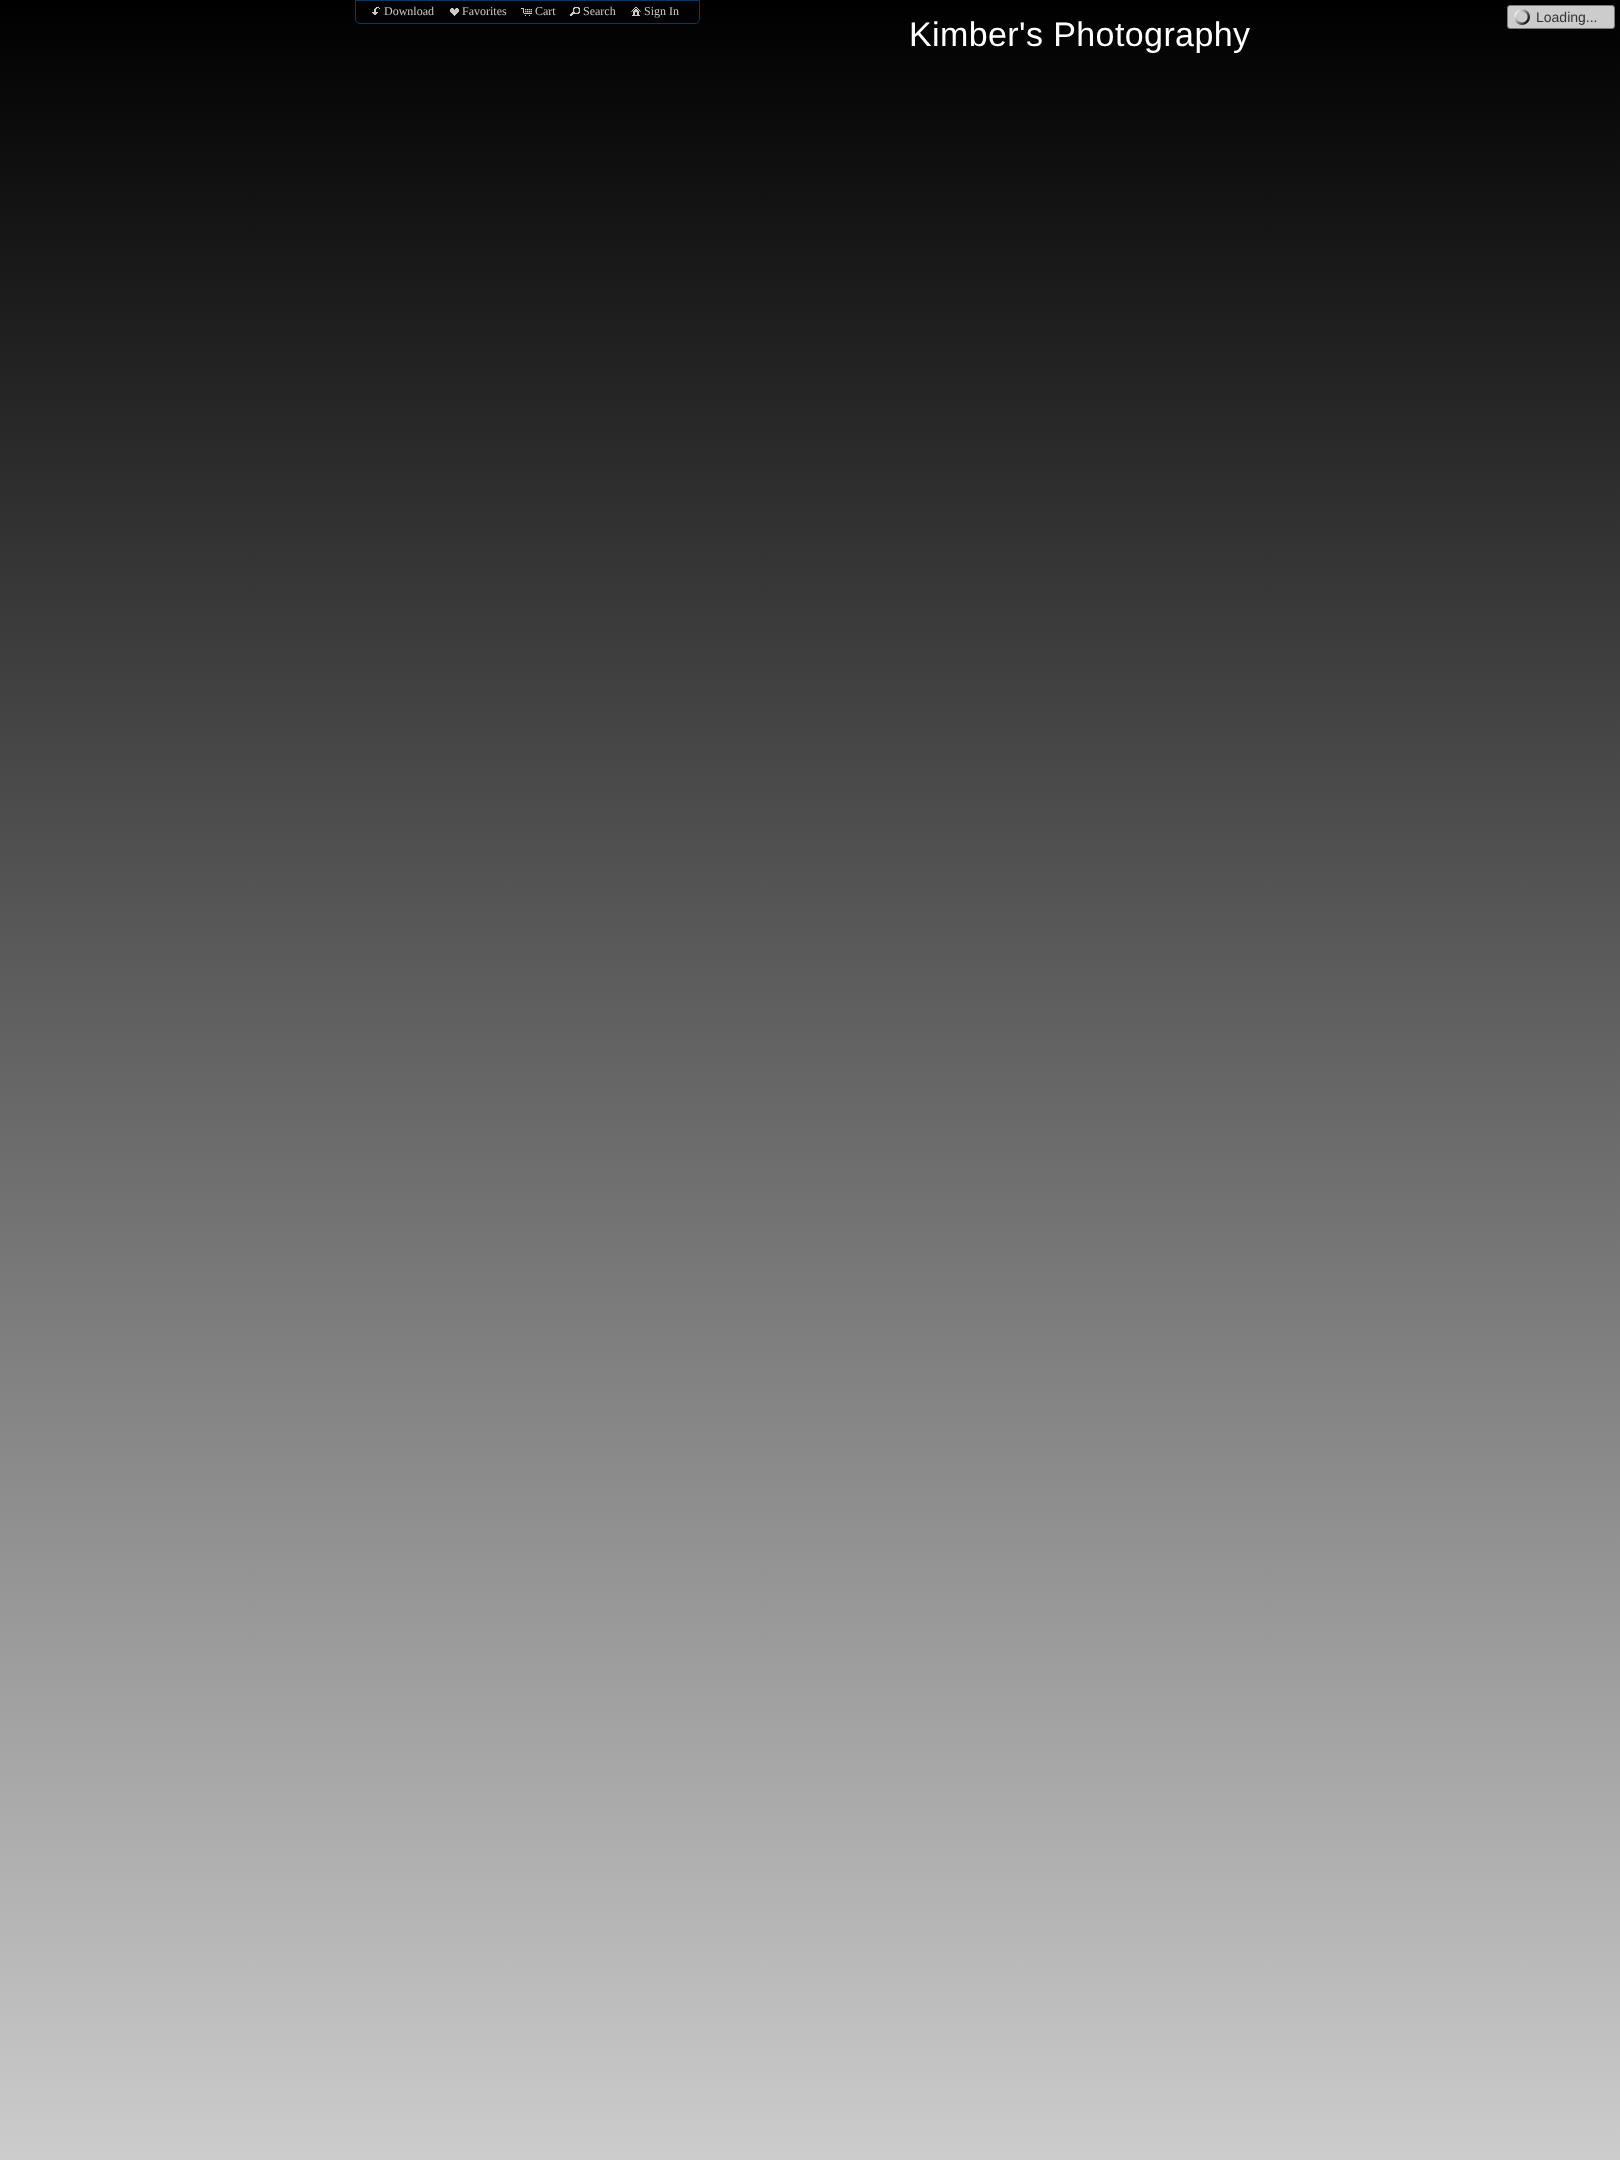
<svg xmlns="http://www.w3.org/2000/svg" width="1620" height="2160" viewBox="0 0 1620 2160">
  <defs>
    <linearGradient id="g1" gradientUnits="userSpaceOnUse" x1="810" y1="0" x2="810" y2="2160"><stop offset="0" stop-color="#000"/><stop offset="1" stop-color="#ccc"/></linearGradient>
  </defs>
  <rect width="100%" height="100%" fill="#fff"/>
  <path d="M0 0h1620v2160H0z" fill="url(#g1)"/>
  <path d="M355.5 .5H699.5V19C699.5 21.5 697.5 23.5 695 23.5H360C357.5 23.5 355.5 21.5 355.5 19Z" fill="none" stroke="#043965"/>
  <image x="372" y="7" width="8" height="8" href="img/1.png"/>
  <image x="450" y="8" width="9" height="8" href="img/2.png"/>
  <image x="521" y="8" width="11" height="8" href="img/3.png"/>
  <image x="570" y="7" width="10" height="9" href="img/4.png"/>
  <image x="631" y="7" width="10" height="9" href="img/5.png"/>
  <rect x="1507.5" y="5.5" width="107" height="23" rx="2.5" fill="#ccc" stroke="#7a7a7a"/>
  <image x="1514" y="9" width="16" height="16" href="img/6.png"/>
  <g font-family="Liberation Serif" font-size="12" fill="#cacaca">
    <text x="384" y="15">Download</text>
    <text x="462" y="15">Favorites</text>
    <text x="535" y="15">Cart</text>
    <text x="583" y="15">Search</text>
    <text x="644" y="15">Sign In</text>
  </g>
  <text x="909" y="46" font-family="Liberation Sans" font-size="34" letter-spacing="0.4" fill="#fff">Kimber's Photography</text>
  <text x="1536" y="22" font-family="Liberation Sans" font-size="14" fill="#333">Loading...</text>
</svg>
